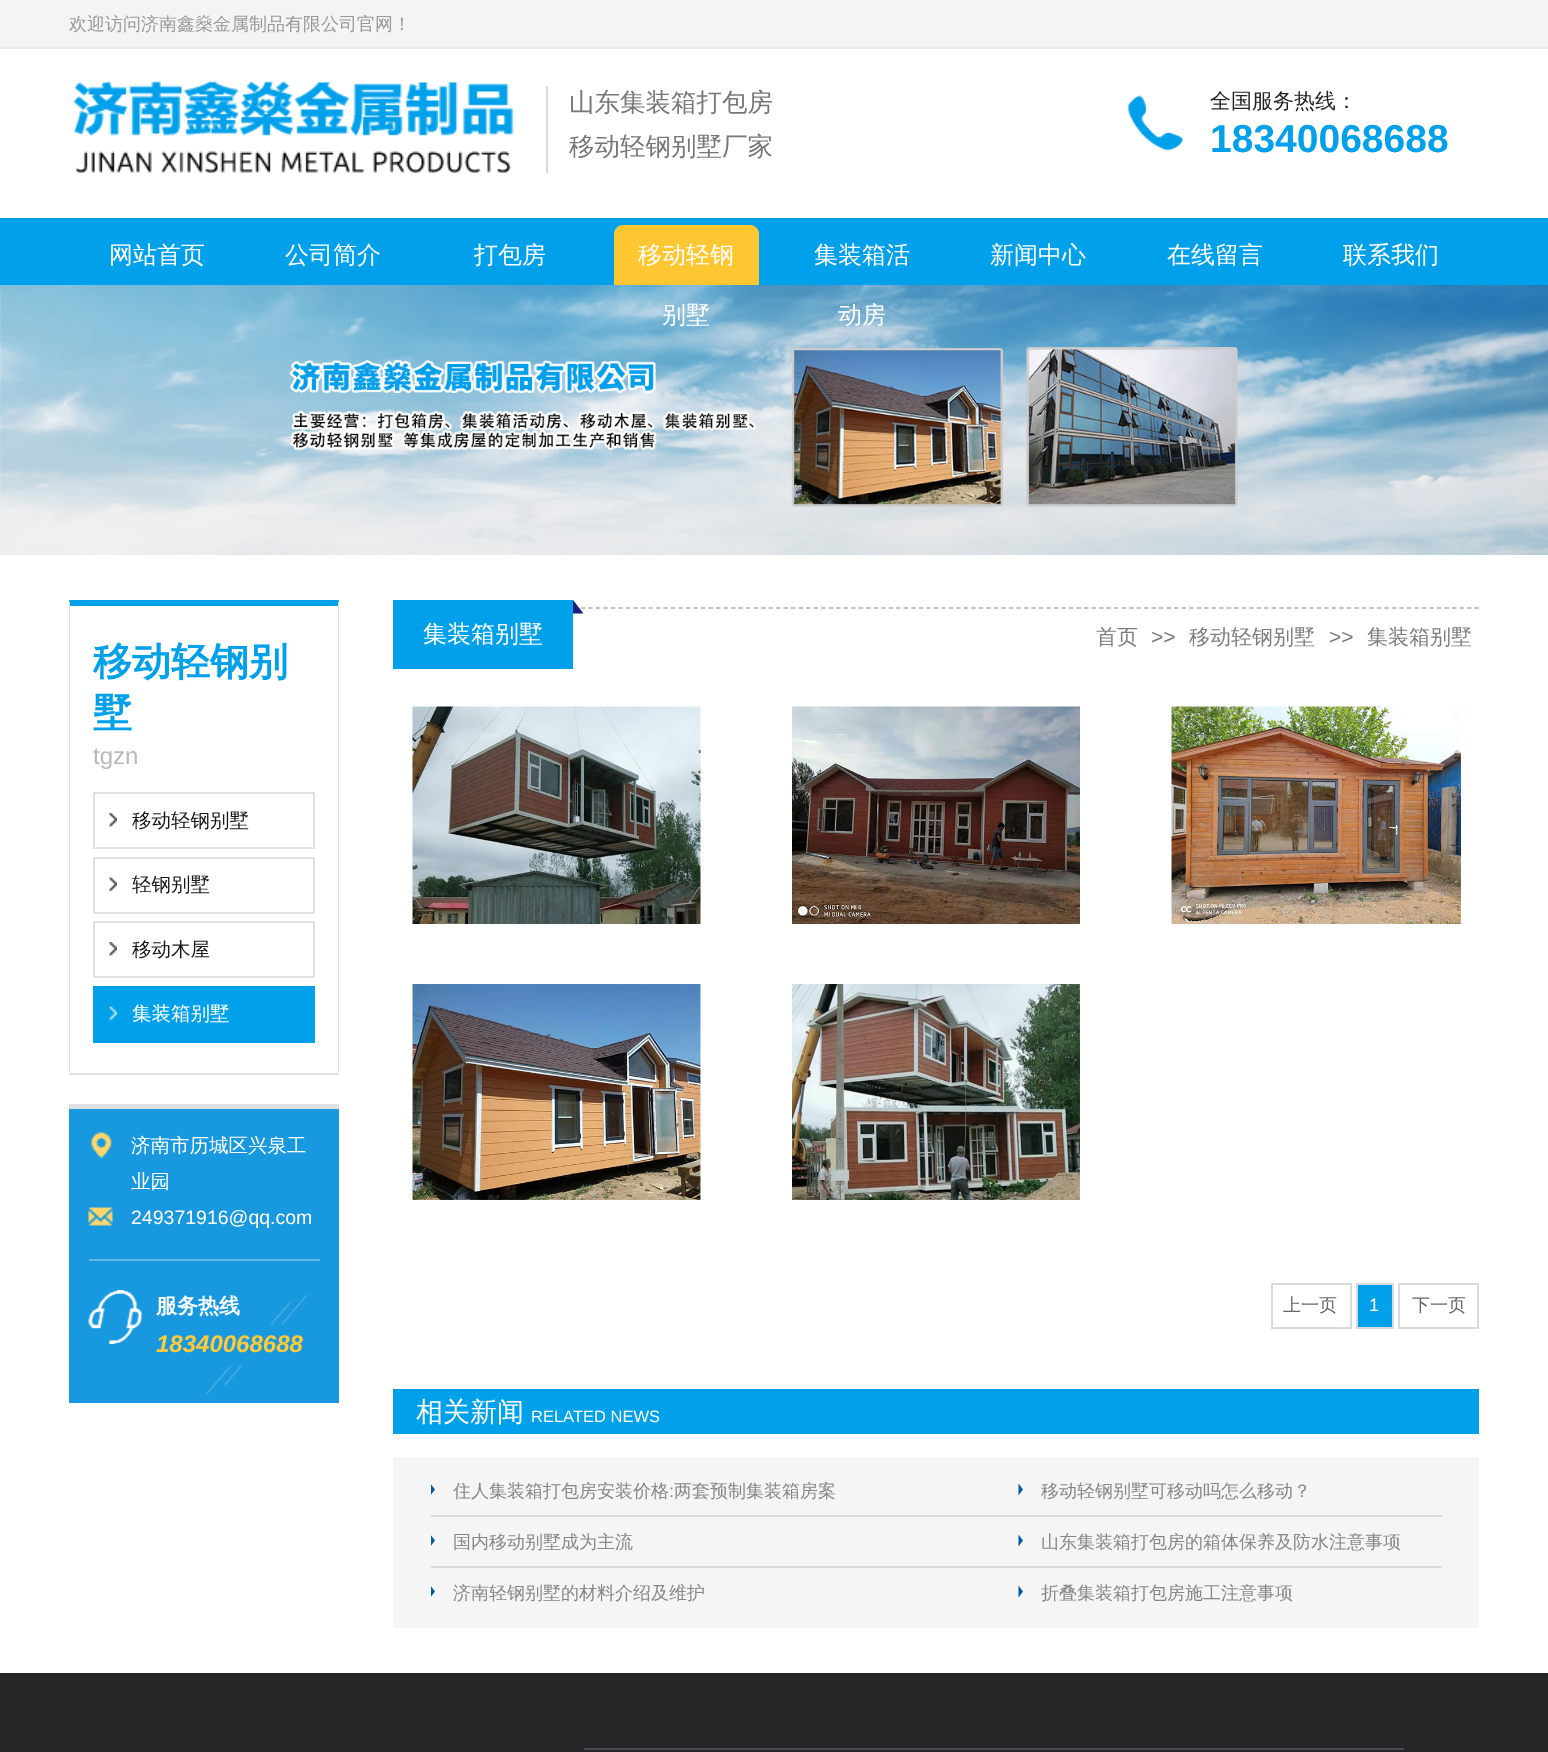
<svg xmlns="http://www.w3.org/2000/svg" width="1548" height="1752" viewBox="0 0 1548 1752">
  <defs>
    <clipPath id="clip1"><path d="M431 1466h505v49H431z"/></clipPath>
    <clipPath id="clip2"><path d="M431 1517h505v49H431z"/></clipPath>
    <clipPath id="clip3"><path d="M431 1568h505v51H431z"/></clipPath>
  </defs>
  <rect width="100%" height="100%" fill="#fff"/>
  <path d="M0 0h1548v47H0z" fill="#f4f4f4"/>
  <path d="M0 47h1548v2H0z" fill="#eaedf0"/>
  <image x="73" y="80" width="441" height="93" href="img/1.png"/>
  <path d="M546 86h2v87H546z" fill="#dadada"/>
  <image x="1128" y="95" width="56" height="56" href="img/2.png"/>
  <path d="M0 218h1548v67H0z" fill="#01a0eb"/>
  <path d="M623 225H750C755 225 759 229 759 234V285H614V234C614 229 618 225 623 225Z" fill="#fec732"/>
  <image x="0" y="285" width="1548" height="270" href="img/3.png"/>
  <path d="M69 600H339L338 606H70Z" fill="#01a0eb"/>
  <path d="M339 600V1074L338 1072V606Z" fill="#e0e0e0"/>
  <path d="M69 1073h270v2H69z" fill="#e0e0e0"/>
  <path d="M69 1074V600L70 606V1072Z" fill="#e0e0e0"/>
  <path d="M94 793h220v55H94z" fill="none" stroke="#e1e1e1" stroke-width="2"/>
  <image x="109" y="813" width="8" height="14" href="img/4.png"/>
  <path d="M94 858h220v55H94z" fill="none" stroke="#e1e1e1" stroke-width="2"/>
  <image x="109" y="877" width="8" height="14" href="img/5.png"/>
  <path d="M94 922h220v55H94z" fill="none" stroke="#e1e1e1" stroke-width="2"/>
  <image x="109" y="942" width="8" height="14" href="img/4.png"/>
  <path d="M93 986h222v57H93z" fill="#01a0eb"/>
  <image x="109" y="1006" width="8" height="14" href="img/6.png"/>
  <path d="M69 1109h270v294H69z" fill="#1898df"/>
  <path d="M69 1104h270v5H69z" fill="#e0e0e0"/>
  <image x="91" y="1132" width="21" height="26" href="img/7.png"/>
  <image x="88" y="1207" width="25" height="19" href="img/8.png"/>
  <image x="205" y="1294" width="103" height="101" href="img/9.png"/>
  <path d="M89 1259h231v2H89z" fill="#62b9e9"/>
  <image x="88" y="1290" width="55" height="54" href="img/10.png"/>
  <path d="M393 608H1479" fill="none" stroke="#b1b1b1" stroke-width="1.5" stroke-dasharray="4.5 3.01"/>
  <path d="M393 600h180v69H393z" fill="#01a0eb"/>
  <path d="M573 613.5V600L583.5 613.5Z" fill="#1b1f7a"/>
  <image x="412" y="706" width="289" height="218" href="img/11.png"/>
  <image x="792" y="706" width="288" height="218" href="img/12.png"/>
  <image x="1171" y="706" width="290" height="218" href="img/13.png"/>
  <image x="412" y="984" width="289" height="216" href="img/14.png"/>
  <image x="792" y="984" width="288" height="216" href="img/15.png"/>
  <path d="M1272 1284h79v44H1272z" fill="none" stroke="#dadada" stroke-width="2"/>
  <path d="M1357 1284h36v44H1357z" fill="#01a0eb" stroke="#dadada" stroke-width="2"/>
  <path d="M1399 1284h79v44H1399z" fill="none" stroke="#dadada" stroke-width="2"/>
  <path d="M393 1389h1086v45H393z" fill="#01a0eb"/>
  <path d="M393 1457h1086v171H393z" fill="#f5f5f5"/>
  <path d="M431 1515h1011v2H431z" fill="#dadada"/>
  <g clip-path="url(#clip1)">
    <path d="M430.5 1495.5V1483.5L435 1489.5Z" fill="#015d9f"/>
  </g>
  <path d="M1018.5 1495.5V1483.5L1023 1489.5Z" fill="#015d9f"/>
  <path d="M431 1566h1011v2H431z" fill="#dadada"/>
  <g clip-path="url(#clip2)">
    <path d="M430.5 1546.5V1534.5L435 1540.5Z" fill="#015d9f"/>
  </g>
  <path d="M1018.5 1546.5V1534.5L1023 1540.5Z" fill="#015d9f"/>
  <g clip-path="url(#clip3)">
    <path d="M430.5 1597.5V1585.5L435 1591.5Z" fill="#015d9f"/>
  </g>
  <path d="M1018.5 1597.5V1585.5L1023 1591.5Z" fill="#015d9f"/>
  <path d="M0 1673h1548v79H0z" fill="#262729"/>
  <path d="M584 1748h820v2H584z" fill="#484a4d"/>
  <text x="69" y="30" font-family="WenQuanYi Zen Hei" font-size="18" font-weight="500" fill="#999">欢迎访问济南鑫燊金属制品有限公司官网！</text>
  <g font-family="WenQuanYi Zen Hei" font-size="25.5" font-weight="500" fill="#777">
    <text x="569" y="111">山东集装箱打包房</text>
    <text x="569" y="155">移动轻钢别墅厂家</text>
  </g>
  <text x="1210" y="108" font-family="WenQuanYi Zen Hei" font-size="21" font-weight="500" fill="#252424">全国服务热线：</text>
  <text x="1210" y="152" font-family="Liberation Sans" font-size="39" font-weight="bold" fill="#01a0eb">18340068688</text>
  <g font-family="WenQuanYi Zen Hei" font-size="24" font-weight="500" fill="#fff">
    <text x="109" y="263">网站首页</text>
    <text x="285" y="263">公司简介</text>
    <text x="474" y="263">打包房</text>
    <text x="638" y="263">移动轻钢</text>
    <text x="662" y="323">别墅</text>
    <text x="814" y="263">集装箱活</text>
    <text x="838" y="323">动房</text>
    <text x="990" y="263">新闻中心</text>
    <text x="1167" y="263">在线留言</text>
    <text x="1343" y="263">联系我们</text>
  </g>
  <g font-family="WenQuanYi Zen Hei" font-size="39" font-weight="bold" fill="#01a0eb">
    <text x="93" y="675">移动轻钢别</text>
    <text x="93" y="726">墅</text>
  </g>
  <text x="93" y="764" font-family="Liberation Sans" font-size="24" fill="#b9b9b9">tgzn</text>
  <g font-family="WenQuanYi Zen Hei" font-size="19.5" font-weight="500" fill="#161616">
    <text x="132" y="827">移动轻钢别墅</text>
    <text x="132" y="891">轻钢别墅</text>
    <text x="132" y="956">移动木屋</text>
  </g>
  <g font-family="WenQuanYi Zen Hei" font-size="19.5" font-weight="500" fill="#fff">
    <text x="132" y="1020">集装箱别墅</text>
    <text x="131" y="1152">济南市历城区兴泉工</text>
    <text x="131" y="1188">业园</text>
  </g>
  <text x="131" y="1224" font-family="Liberation Sans" font-size="19.5" fill="#fff">249371916@qq.com</text>
  <text x="156" y="1313" font-family="WenQuanYi Zen Hei" font-size="21" font-weight="bold" fill="#fff">服务热线</text>
  <text x="156" y="1352" font-family="Liberation Sans" font-size="24" font-weight="bold" font-style="italic" fill="#ffc938">18340068688</text>
  <text x="423" y="642" font-family="WenQuanYi Zen Hei" font-size="24" font-weight="500" fill="#fff">集装箱别墅</text>
  <text x="1096" y="644" font-family="WenQuanYi Zen Hei" font-size="21" font-weight="500" fill="#7e7d7d">首页</text>
  <text x="1151" y="644" font-family="Liberation Sans" font-size="21" fill="#7e7d7d">&gt;&gt;</text>
  <text x="1189" y="644" font-family="WenQuanYi Zen Hei" font-size="21" font-weight="500" fill="#7e7d7d">移动轻钢别墅</text>
  <text x="1329" y="644" font-family="Liberation Sans" font-size="21" fill="#7e7d7d">&gt;&gt;</text>
  <text x="1367" y="644" font-family="WenQuanYi Zen Hei" font-size="21" font-weight="500" fill="#7e7d7d">集装箱别墅</text>
  <text x="1283" y="1311" font-family="WenQuanYi Zen Hei" font-size="18" font-weight="500" fill="#666">上一页</text>
  <text x="1369" y="1311" font-family="Liberation Sans" font-size="18" fill="#fff">1</text>
  <text x="1412" y="1311" font-family="WenQuanYi Zen Hei" font-size="18" font-weight="500" fill="#666">下一页</text>
  <text x="416" y="1421" font-family="WenQuanYi Zen Hei" font-size="27" font-weight="500" fill="#fff">相关新闻</text>
  <text x="531" y="1422" font-family="Liberation Sans" font-size="16.5" fill="#fff">RELATED NEWS</text>
  <text x="453" y="1497" font-family="WenQuanYi Zen Hei" font-size="18" font-weight="500" fill="#878787">住人集装箱打包房安装价格</text>
  <text x="669" y="1497" font-family="Liberation Sans" font-size="18" fill="#878787">:</text>
  <g font-family="WenQuanYi Zen Hei" font-size="18" font-weight="500" fill="#878787">
    <text x="674" y="1497">两套预制集装箱房案</text>
    <text x="1041" y="1497">移动轻钢别墅可移动吗怎么移动？</text>
    <text x="453" y="1548">国内移动别墅成为主流</text>
    <text x="1041" y="1548">山东集装箱打包房的箱体保养及防水注意事项</text>
    <text x="453" y="1599">济南轻钢别墅的材料介绍及维护</text>
    <text x="1041" y="1599">折叠集装箱打包房施工注意事项</text>
  </g>
</svg>
